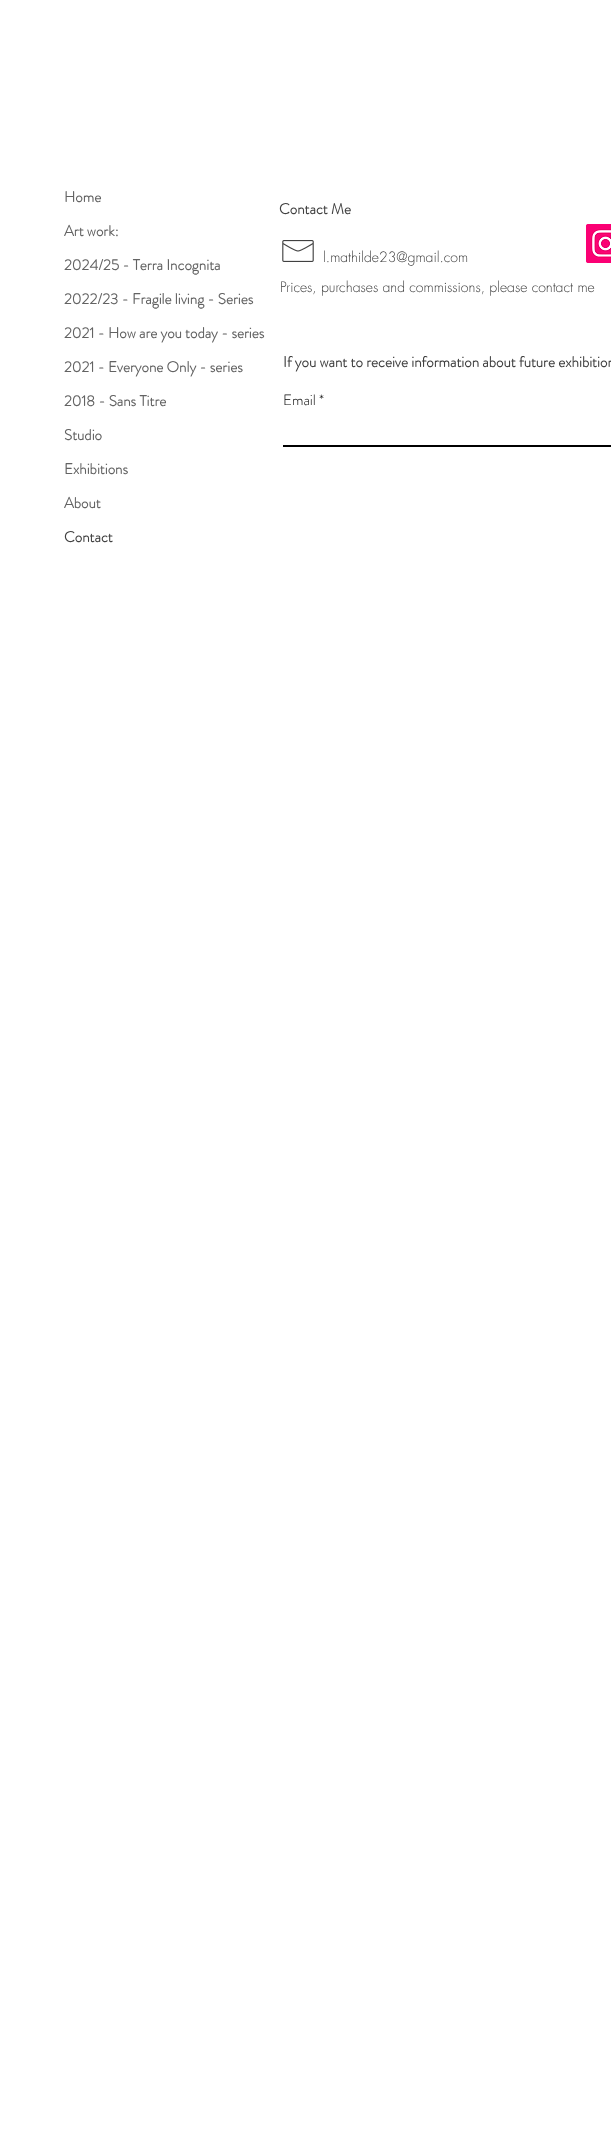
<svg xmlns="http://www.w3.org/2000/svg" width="611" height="2139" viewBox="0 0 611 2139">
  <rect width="100%" height="100%" fill="#fff"/>
  <image x="282" y="240" width="32" height="22" href="img/1.png"/>
  <image x="586" y="224" width="25" height="39" href="img/2.png"/>
  <path d="M283 445h328v2H283z" fill="#000"/>
  <g font-family="'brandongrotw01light'" font-size="15" font-weight="bold" fill="#636363">
    <text x="64" y="202">Home</text>
    <text x="64" y="236">Art work:</text>
    <text x="64" y="270">2024/25 - Terra Incognita</text>
    <text x="64" y="304">2022/23 - Fragile living - Series</text>
    <text x="64" y="338">2021 - How are you today - series</text>
    <text x="64" y="372">2021 - Everyone Only - series</text>
    <text x="64" y="406">2018 - Sans Titre</text>
    <text x="64" y="440">Studio</text>
    <text x="64" y="474">Exhibitions</text>
    <text x="64" y="508">About</text>
  </g>
  <g font-family="'brandongrotw01light'" font-size="15" font-weight="bold" fill="#414141">
    <text x="64" y="542">Contact</text>
    <text x="279" y="214">Contact Me</text>
  </g>
  <g font-family="futura" font-size="14" font-weight="300" fill="#414141">
    <text x="323" y="262">l.mathilde23@gmail.com</text>
    <text x="280" y="292">Prices, purchases and commissions, please contact me</text>
  </g>
  <text x="283" y="367" font-family="'brandongrotw01light'" font-size="15" font-weight="bold" fill="#414141">If you want to receive information about future exhibition</text>
  <text x="283" y="405" font-family="'brandongrotw01light'" font-size="15" font-weight="300" fill="#000">Email *</text>
</svg>
